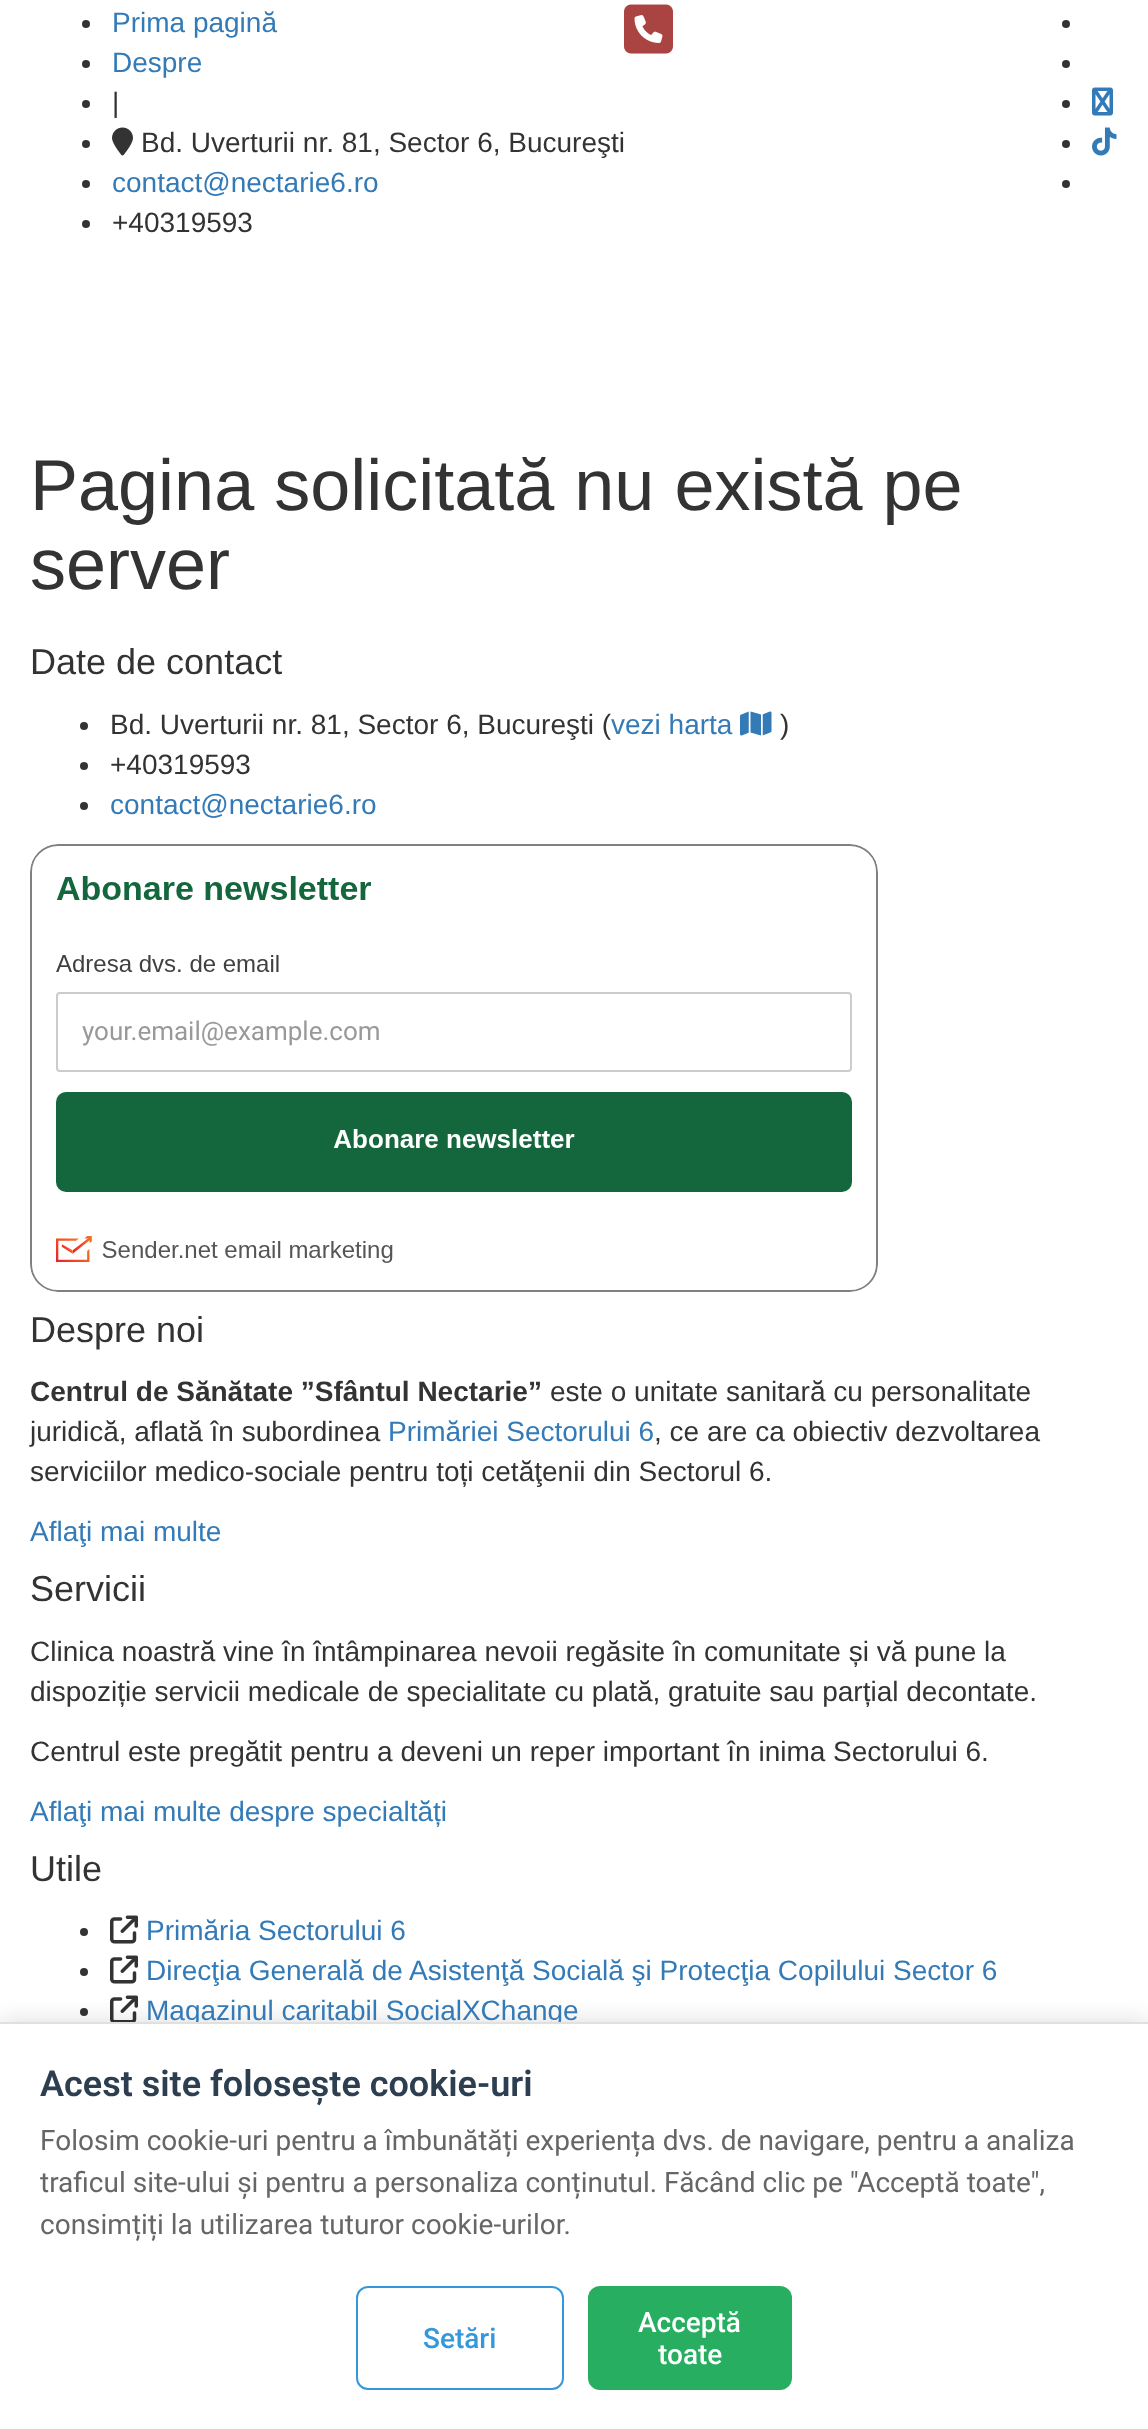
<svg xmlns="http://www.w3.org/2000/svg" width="1148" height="2429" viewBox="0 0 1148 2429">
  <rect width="100%" height="100%" fill="#fff"/>
  <circle cx="86" cy="24" r="4" fill="#333"/>
  <circle cx="86" cy="64" r="4" fill="#333"/>
  <circle cx="86" cy="104" r="4" fill="#333"/>
  <circle cx="86" cy="144" r="4" fill="#333"/>
  <image x="112" y="127" width="21" height="29" href="img/1.png"/>
  <circle cx="86" cy="184" r="4" fill="#333"/>
  <circle cx="86" cy="224" r="4" fill="#333"/>
  <image x="624" y="4" width="49" height="50" href="img/2.png"/>
  <circle cx="1066" cy="24" r="4" fill="#333"/>
  <circle cx="1066" cy="64" r="4" fill="#333"/>
  <circle cx="1066" cy="104" r="4" fill="#333"/>
  <image x="1092" y="87" width="21" height="29" href="img/3.png"/>
  <circle cx="1066" cy="144" r="4" fill="#333"/>
  <image x="1092" y="127" width="25" height="29" href="img/4.png"/>
  <circle cx="1066" cy="184" r="4" fill="#333"/>
  <circle cx="84" cy="726" r="4" fill="#333"/>
  <image x="740" y="711" width="32" height="25" href="img/5.png"/>
  <circle cx="84" cy="766" r="4" fill="#333"/>
  <circle cx="84" cy="806" r="4" fill="#333"/>
  <image x="30" y="844" width="848" height="448" href="img/6.png"/>
  <circle cx="84" cy="1932" r="4" fill="#333"/>
  <image x="110" y="1915" width="28" height="29" href="img/7.png"/>
  <circle cx="84" cy="1972" r="4" fill="#333"/>
  <image x="110" y="1955" width="28" height="29" href="img/7.png"/>
  <circle cx="84" cy="2012" r="4" fill="#333"/>
  <image x="110" y="1995" width="28" height="27" href="img/8.png"/>
  <path d="M0 2018h1148v408H0z" fill="#0000001a" filter="blur(10px)"/>
  <g font-family="Liberation Sans" font-size="28" fill="#337ab7">
    <text x="112" y="32">Prima pagină</text>
    <text x="112" y="72">Despre</text>
  </g>
  <g font-family="Liberation Sans" font-size="28" fill="#333">
    <text x="112" y="112">|</text>
    <text x="141" y="152">Bd. Uverturii nr. 81, Sector 6, Bucureşti</text>
  </g>
  <text x="112" y="192" font-family="Liberation Sans" font-size="28" fill="#337ab7">contact@nectarie6.ro</text>
  <text x="112" y="232" font-family="Liberation Sans" font-size="28" fill="#333">+40319593</text>
  <g font-family="Liberation Sans" font-size="72" fill="#333">
    <text x="30" y="510">Pagina solicitată nu există pe</text>
    <text x="30" y="589">server</text>
  </g>
  <text x="30" y="674" font-family="Liberation Sans" font-size="36" fill="#333">Date de contact</text>
  <text x="110" y="734" font-family="Liberation Sans" font-size="28" fill="#333">Bd. Uverturii nr. 81, Sector 6, Bucureşti (</text>
  <text x="611" y="734" font-family="Liberation Sans" font-size="28" fill="#337ab7">vezi harta</text>
  <g font-family="Liberation Sans" font-size="28" fill="#333">
    <text x="780" y="734">)</text>
    <text x="110" y="774">+40319593</text>
  </g>
  <text x="110" y="814" font-family="Liberation Sans" font-size="28" fill="#337ab7">contact@nectarie6.ro</text>
  <text x="30" y="1342" font-family="Liberation Sans" font-size="36" fill="#333">Despre noi</text>
  <text x="30" y="1401" font-family="Liberation Sans" font-size="28" font-weight="bold" fill="#333">Centrul de Sănătate ”Sfântul Nectarie”</text>
  <g font-family="Liberation Sans" font-size="28" fill="#333">
    <text x="550" y="1401">este o unitate sanitară cu personalitate</text>
    <text x="30" y="1441">juridică, aflată în subordinea</text>
  </g>
  <text x="388" y="1441" font-family="Liberation Sans" font-size="28" fill="#337ab7">Primăriei Sectorului 6</text>
  <g font-family="Liberation Sans" font-size="28" fill="#333">
    <text x="654" y="1441">, ce are ca obiectiv dezvoltarea</text>
    <text x="30" y="1481">serviciilor medico-sociale pentru toți cetăţenii din Sectorul 6.</text>
  </g>
  <text x="30" y="1541" font-family="Liberation Sans" font-size="28" fill="#337ab7">Aflaţi mai multe</text>
  <text x="30" y="1601" font-family="Liberation Sans" font-size="36" fill="#333">Servicii</text>
  <g font-family="Liberation Sans" font-size="28" fill="#333">
    <text x="30" y="1661">Clinica noastră vine în întâmpinarea nevoii regăsite în comunitate și vă pune la</text>
    <text x="30" y="1701">dispoziție servicii medicale de specialitate cu plată, gratuite sau parțial decontate.</text>
    <text x="30" y="1761">Centrul este pregătit pentru a deveni un reper important în inima Sectorului 6.</text>
  </g>
  <text x="30" y="1821" font-family="Liberation Sans" font-size="28" fill="#337ab7">Aflaţi mai multe despre specialtăți</text>
  <text x="30" y="1881" font-family="Liberation Sans" font-size="36" fill="#333">Utile</text>
  <g font-family="Liberation Sans" font-size="28" fill="#337ab7">
    <text x="146" y="1940">Primăria Sectorului 6</text>
    <text x="146" y="1980">Direcţia Generală de Asistenţă Socială şi Protecţia Copilului Sector 6</text>
    <text x="146" y="2020">Magazinul caritabil SocialXChange</text>
  </g>
  <path d="M0 2024h1148v405H0z" fill="#fff"/>
  <path d="M0 2022h1148v2H0z" fill="#e0e0e0"/>
  <text x="40" y="2096" font-family="Roboto" font-size="36" font-weight="600" fill="#2c3e50">Acest site folosește cookie-uri</text>
  <g font-family="Roboto" font-size="28" fill="#666">
    <text x="40" y="2150">Folosim cookie-uri pentru a îmbunătăți experiența dvs. de navigare, pentru a analiza</text>
    <text x="40" y="2192">traficul site-ului și pentru a personaliza conținutul. Făcând clic pe "Acceptă toate",</text>
    <text x="40" y="2234">consimțiți la utilizarea tuturor cookie-urilor.</text>
  </g>
  <rect x="357" y="2287" width="206" height="102" rx="11" fill="none" stroke="#3498db" stroke-width="2"/>
  <text x="423" y="2348" font-family="Roboto" font-size="28" font-weight="500" fill="#3498db">Setări</text>
  <rect x="588" y="2286" width="204" height="104" rx="12" fill="#27ae60"/>
  <g font-family="Roboto" font-size="28" font-weight="500" fill="#fff">
    <text x="638" y="2332">Acceptă</text>
    <text x="658" y="2364">toate</text>
  </g>
</svg>
